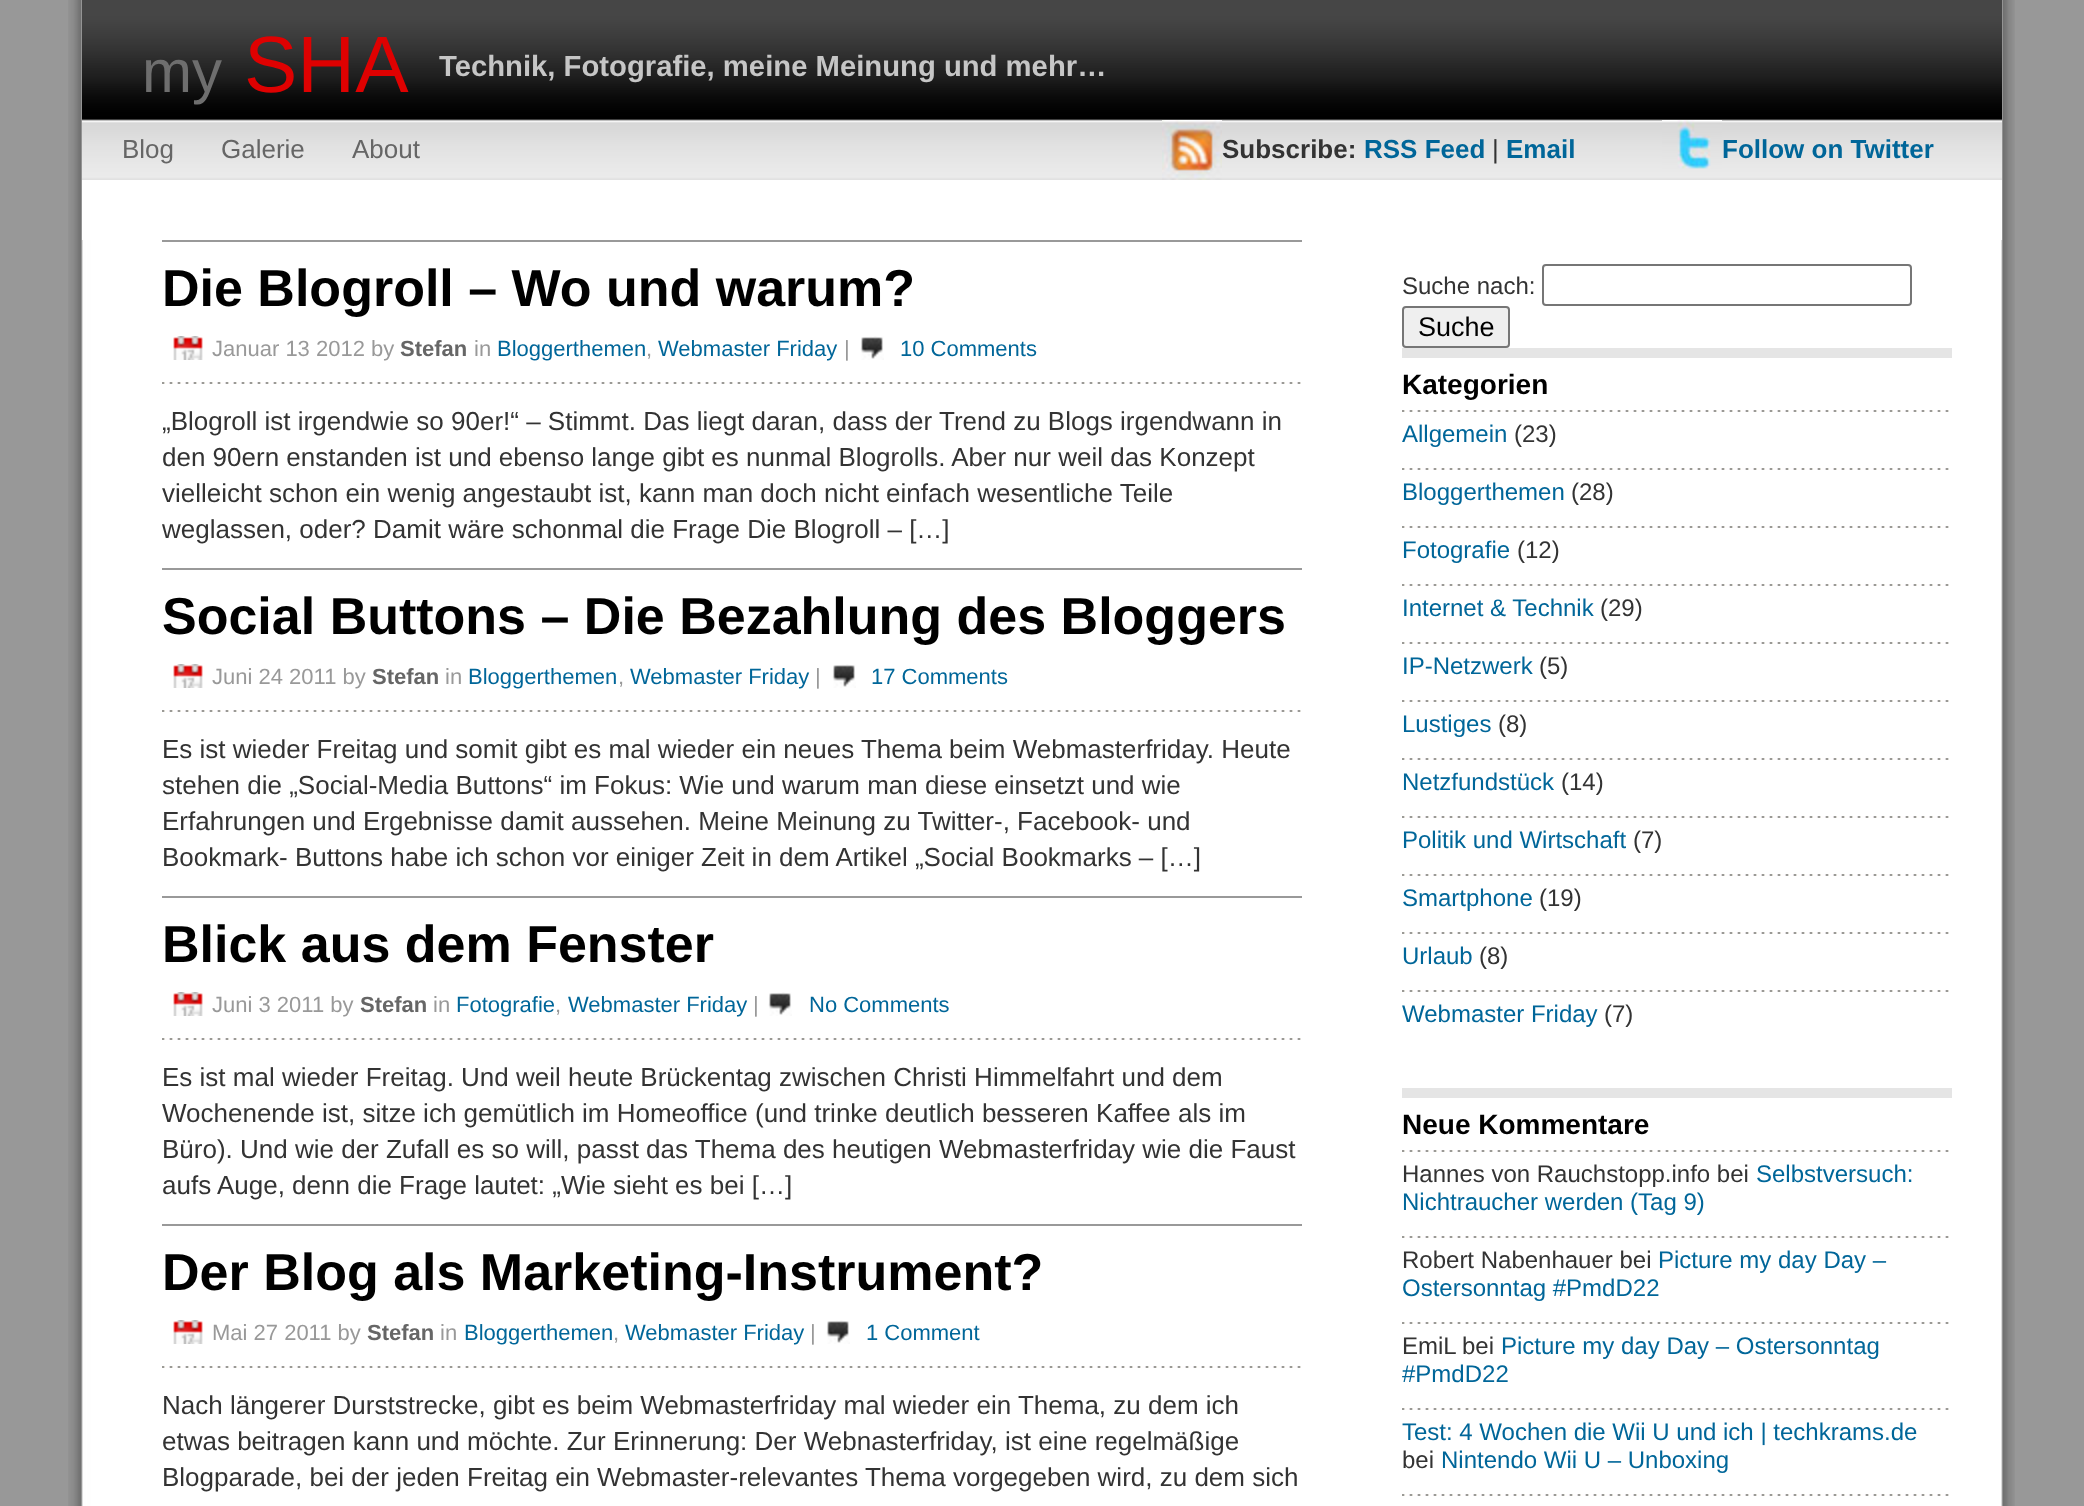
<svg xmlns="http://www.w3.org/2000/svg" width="2084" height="1506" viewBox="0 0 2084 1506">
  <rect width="100%" height="100%" fill="#989898"/>
  <image x="68" y="0" width="1947" height="1506" href="img/1.png"/>
  <path d="M82 180h1920v60H82z" fill="#fff"/>
  <image x="82" y="0" width="1920" height="180" href="img/2.png"/>
  <image x="1162" y="120" width="60" height="60" href="img/3.png"/>
  <image x="1662" y="120" width="60" height="49" href="img/4.png"/>
  <path d="M162 240h1140v2H162z" fill="#999"/>
  <image x="162" y="382" width="1139" height="2" href="img/5.png"/>
  <image x="173" y="336" width="30" height="24" href="img/6.png"/>
  <image x="860" y="336" width="24" height="24" href="img/7.png"/>
  <path d="M162 568h1140v2H162z" fill="#999"/>
  <image x="162" y="710" width="1139" height="2" href="img/5.png"/>
  <image x="173" y="664" width="30" height="24" href="img/6.png"/>
  <image x="832" y="664" width="24" height="24" href="img/7.png"/>
  <path d="M162 896h1140v2H162z" fill="#999"/>
  <image x="162" y="1038" width="1139" height="2" href="img/5.png"/>
  <image x="173" y="992" width="30" height="24" href="img/6.png"/>
  <image x="768" y="992" width="24" height="24" href="img/7.png"/>
  <path d="M162 1224h1140v2H162z" fill="#999"/>
  <image x="162" y="1366" width="1139" height="2" href="img/5.png"/>
  <image x="173" y="1320" width="30" height="24" href="img/6.png"/>
  <image x="826" y="1320" width="24" height="24" href="img/7.png"/>
  <rect x="1543" y="265" width="368" height="40" rx="3" fill="none" stroke="#767676" stroke-width="2"/>
  <rect x="1403" y="307" width="106" height="40" rx="3" fill="#efefef" stroke="#767676" stroke-width="2"/>
  <path d="M1402 348h550v10H1402z" fill="#e5e5e5"/>
  <image x="1402" y="410" width="547" height="2" href="img/8.png"/>
  <image x="1402" y="468" width="547" height="2" href="img/8.png"/>
  <image x="1402" y="526" width="547" height="2" href="img/8.png"/>
  <image x="1402" y="584" width="547" height="2" href="img/8.png"/>
  <image x="1402" y="642" width="547" height="2" href="img/8.png"/>
  <image x="1402" y="700" width="547" height="2" href="img/8.png"/>
  <image x="1402" y="758" width="547" height="2" href="img/8.png"/>
  <image x="1402" y="816" width="547" height="2" href="img/8.png"/>
  <image x="1402" y="874" width="547" height="2" href="img/8.png"/>
  <image x="1402" y="932" width="547" height="2" href="img/8.png"/>
  <image x="1402" y="990" width="547" height="2" href="img/8.png"/>
  <path d="M1402 1088h550v10H1402z" fill="#e5e5e5"/>
  <image x="1402" y="1150" width="547" height="2" href="img/8.png"/>
  <image x="1402" y="1236" width="547" height="2" href="img/8.png"/>
  <image x="1402" y="1322" width="547" height="2" href="img/8.png"/>
  <image x="1402" y="1408" width="547" height="2" href="img/8.png"/>
  <image x="1402" y="1494" width="547" height="2" href="img/8.png"/>
  <text x="142" y="92" font-family="Liberation Sans" font-size="60" fill="#6e6e6e">my</text>
  <text x="244" y="92" font-family="Liberation Sans" font-size="80" fill="#df0101">SHA</text>
  <text x="439" y="76" font-family="Liberation Sans" font-size="29.25" font-weight="bold" fill="#c6c6c6">Technik, Fotografie, meine Meinung und mehr…</text>
  <g font-family="Liberation Sans" font-size="26" fill="#666">
    <text x="122" y="158">Blog</text>
    <text x="221" y="158">Galerie</text>
    <text x="352" y="158">About</text>
  </g>
  <text x="1222" y="158" font-family="Liberation Sans" font-size="26" font-weight="bold" fill="#333">Subscribe:</text>
  <text x="1364" y="158" font-family="Liberation Sans" font-size="26" font-weight="bold" fill="#069">RSS Feed</text>
  <text x="1492" y="158" font-family="Liberation Sans" font-size="26" fill="#333">|</text>
  <g font-family="Liberation Sans" font-size="26" font-weight="bold" fill="#069">
    <text x="1506" y="158">Email</text>
    <text x="1722" y="158">Follow on Twitter</text>
  </g>
  <text x="162" y="306" font-family="Liberation Sans" font-size="52" font-weight="bold" fill="#000">Die Blogroll – Wo und warum?</text>
  <text x="212" y="356" font-family="Liberation Sans" font-size="22" fill="#999">Januar 13 2012 by</text>
  <text x="400" y="356" font-family="Liberation Sans" font-size="22" font-weight="bold" fill="#666">Stefan</text>
  <text x="474" y="356" font-family="Liberation Sans" font-size="22" fill="#999">in</text>
  <text x="497" y="356" font-family="Liberation Sans" font-size="22" fill="#069">Bloggerthemen</text>
  <text x="646" y="356" font-family="Liberation Sans" font-size="22" fill="#999">,</text>
  <text x="658" y="356" font-family="Liberation Sans" font-size="22" fill="#069">Webmaster Friday</text>
  <text x="844" y="356" font-family="Liberation Sans" font-size="22" fill="#999">|</text>
  <text x="900" y="356" font-family="Liberation Sans" font-size="22" fill="#069">10 Comments</text>
  <g font-family="Liberation Sans" font-size="26" fill="#333">
    <text x="162" y="430">„Blogroll ist irgendwie so 90er!“ – Stimmt. Das liegt daran, dass der Trend zu Blogs irgendwann in</text>
    <text x="162" y="466">den 90ern enstanden ist und ebenso lange gibt es nunmal Blogrolls. Aber nur weil das Konzept</text>
    <text x="162" y="502">vielleicht schon ein wenig angestaubt ist, kann man doch nicht einfach wesentliche Teile</text>
    <text x="162" y="538">weglassen, oder? Damit wäre schonmal die Frage Die Blogroll – […]</text>
  </g>
  <text x="162" y="634" font-family="Liberation Sans" font-size="52" font-weight="bold" fill="#000">Social Buttons – Die Bezahlung des Bloggers</text>
  <text x="212" y="684" font-family="Liberation Sans" font-size="22" fill="#999">Juni 24 2011 by</text>
  <text x="372" y="684" font-family="Liberation Sans" font-size="22" font-weight="bold" fill="#666">Stefan</text>
  <text x="445" y="684" font-family="Liberation Sans" font-size="22" fill="#999">in</text>
  <text x="468" y="684" font-family="Liberation Sans" font-size="22" fill="#069">Bloggerthemen</text>
  <text x="618" y="684" font-family="Liberation Sans" font-size="22" fill="#999">,</text>
  <text x="630" y="684" font-family="Liberation Sans" font-size="22" fill="#069">Webmaster Friday</text>
  <text x="815" y="684" font-family="Liberation Sans" font-size="22" fill="#999">|</text>
  <text x="871" y="684" font-family="Liberation Sans" font-size="22" fill="#069">17 Comments</text>
  <g font-family="Liberation Sans" font-size="26" fill="#333">
    <text x="162" y="758">Es ist wieder Freitag und somit gibt es mal wieder ein neues Thema beim Webmasterfriday. Heute</text>
    <text x="162" y="794">stehen die „Social-Media Buttons“ im Fokus: Wie und warum man diese einsetzt und wie</text>
    <text x="162" y="830">Erfahrungen und Ergebnisse damit aussehen. Meine Meinung zu Twitter-, Facebook- und</text>
    <text x="162" y="866">Bookmark- Buttons habe ich schon vor einiger Zeit in dem Artikel „Social Bookmarks – […]</text>
  </g>
  <text x="162" y="962" font-family="Liberation Sans" font-size="52" font-weight="bold" fill="#000">Blick aus dem Fenster</text>
  <text x="212" y="1012" font-family="Liberation Sans" font-size="22" fill="#999">Juni 3 2011 by</text>
  <text x="360" y="1012" font-family="Liberation Sans" font-size="22" font-weight="bold" fill="#666">Stefan</text>
  <text x="433" y="1012" font-family="Liberation Sans" font-size="22" fill="#999">in</text>
  <text x="456" y="1012" font-family="Liberation Sans" font-size="22" fill="#069">Fotografie</text>
  <text x="555" y="1012" font-family="Liberation Sans" font-size="22" fill="#999">,</text>
  <text x="568" y="1012" font-family="Liberation Sans" font-size="22" fill="#069">Webmaster Friday</text>
  <text x="753" y="1012" font-family="Liberation Sans" font-size="22" fill="#999">|</text>
  <text x="809" y="1012" font-family="Liberation Sans" font-size="22" fill="#069">No Comments</text>
  <g font-family="Liberation Sans" font-size="26" fill="#333">
    <text x="162" y="1086">Es ist mal wieder Freitag. Und weil heute Brückentag zwischen Christi Himmelfahrt und dem</text>
    <text x="162" y="1122">Wochenende ist, sitze ich gemütlich im Homeoffice (und trinke deutlich besseren Kaffee als im</text>
    <text x="162" y="1158">Büro). Und wie der Zufall es so will, passt das Thema des heutigen Webmasterfriday wie die Faust</text>
    <text x="162" y="1194">aufs Auge, denn die Frage lautet: „Wie sieht es bei […]</text>
  </g>
  <text x="162" y="1290" font-family="Liberation Sans" font-size="52" font-weight="bold" fill="#000">Der Blog als Marketing-Instrument?</text>
  <text x="212" y="1340" font-family="Liberation Sans" font-size="22" fill="#999">Mai 27 2011 by</text>
  <text x="367" y="1340" font-family="Liberation Sans" font-size="22" font-weight="bold" fill="#666">Stefan</text>
  <text x="440" y="1340" font-family="Liberation Sans" font-size="22" fill="#999">in</text>
  <text x="464" y="1340" font-family="Liberation Sans" font-size="22" fill="#069">Bloggerthemen</text>
  <text x="613" y="1340" font-family="Liberation Sans" font-size="22" fill="#999">,</text>
  <text x="625" y="1340" font-family="Liberation Sans" font-size="22" fill="#069">Webmaster Friday</text>
  <text x="810" y="1340" font-family="Liberation Sans" font-size="22" fill="#999">|</text>
  <text x="866" y="1340" font-family="Liberation Sans" font-size="22" fill="#069">1 Comment</text>
  <g font-family="Liberation Sans" font-size="26" fill="#333">
    <text x="162" y="1414">Nach längerer Durststrecke, gibt es beim Webmasterfriday mal wieder ein Thema, zu dem ich</text>
    <text x="162" y="1450">etwas beitragen kann und möchte. Zur Erinnerung: Der Webnasterfriday, ist eine regelmäßige</text>
    <text x="162" y="1486">Blogparade, bei der jeden Freitag ein Webmaster-relevantes Thema vorgegeben wird, zu dem sich</text>
  </g>
  <text x="1402" y="294" font-family="Liberation Sans" font-size="24" fill="#333">Suche nach:</text>
  <text x="1418" y="336" font-family="Liberation Sans" font-size="27" fill="#000">Suche</text>
  <text x="1402" y="394" font-family="Liberation Sans" font-size="28" font-weight="bold" fill="#000">Kategorien</text>
  <text x="1402" y="442" font-family="Liberation Sans" font-size="24" fill="#069">Allgemein</text>
  <text x="1514" y="442" font-family="Liberation Sans" font-size="24" fill="#333">(23)</text>
  <text x="1402" y="500" font-family="Liberation Sans" font-size="24" fill="#069">Bloggerthemen</text>
  <text x="1571" y="500" font-family="Liberation Sans" font-size="24" fill="#333">(28)</text>
  <text x="1402" y="558" font-family="Liberation Sans" font-size="24" fill="#069">Fotografie</text>
  <text x="1517" y="558" font-family="Liberation Sans" font-size="24" fill="#333">(12)</text>
  <text x="1402" y="616" font-family="Liberation Sans" font-size="24" fill="#069">Internet &amp; Technik</text>
  <text x="1600" y="616" font-family="Liberation Sans" font-size="24" fill="#333">(29)</text>
  <text x="1402" y="674" font-family="Liberation Sans" font-size="24" fill="#069">IP-Netzwerk</text>
  <text x="1539" y="674" font-family="Liberation Sans" font-size="24" fill="#333">(5)</text>
  <text x="1402" y="732" font-family="Liberation Sans" font-size="24" fill="#069">Lustiges</text>
  <text x="1498" y="732" font-family="Liberation Sans" font-size="24" fill="#333">(8)</text>
  <text x="1402" y="790" font-family="Liberation Sans" font-size="24" fill="#069">Netzfundstück</text>
  <text x="1561" y="790" font-family="Liberation Sans" font-size="24" fill="#333">(14)</text>
  <text x="1402" y="848" font-family="Liberation Sans" font-size="24" fill="#069">Politik und Wirtschaft</text>
  <text x="1633" y="848" font-family="Liberation Sans" font-size="24" fill="#333">(7)</text>
  <text x="1402" y="906" font-family="Liberation Sans" font-size="24" fill="#069">Smartphone</text>
  <text x="1539" y="906" font-family="Liberation Sans" font-size="24" fill="#333">(19)</text>
  <text x="1402" y="964" font-family="Liberation Sans" font-size="24" fill="#069">Urlaub</text>
  <text x="1479" y="964" font-family="Liberation Sans" font-size="24" fill="#333">(8)</text>
  <text x="1402" y="1022" font-family="Liberation Sans" font-size="24" fill="#069">Webmaster Friday</text>
  <text x="1604" y="1022" font-family="Liberation Sans" font-size="24" fill="#333">(7)</text>
  <text x="1402" y="1134" font-family="Liberation Sans" font-size="28" font-weight="bold" fill="#000">Neue Kommentare</text>
  <text x="1402" y="1182" font-family="Liberation Sans" font-size="24" fill="#333">Hannes von Rauchstopp.info bei</text>
  <g font-family="Liberation Sans" font-size="24" fill="#069">
    <text x="1756" y="1182">Selbstversuch:</text>
    <text x="1402" y="1210">Nichtraucher werden (Tag 9)</text>
  </g>
  <text x="1402" y="1268" font-family="Liberation Sans" font-size="24" fill="#333">Robert Nabenhauer bei</text>
  <g font-family="Liberation Sans" font-size="24" fill="#069">
    <text x="1658" y="1268">Picture my day Day –</text>
    <text x="1402" y="1296">Ostersonntag #PmdD22</text>
  </g>
  <g font-family="Liberation Sans" font-size="24" fill="#333">
    <text x="1402" y="1354">EmiL</text>
    <text x="1462" y="1354">bei</text>
  </g>
  <g font-family="Liberation Sans" font-size="24" fill="#069">
    <text x="1501" y="1354">Picture my day Day – Ostersonntag</text>
    <text x="1402" y="1382">#PmdD22</text>
    <text x="1402" y="1440">Test: 4 Wochen die Wii U und ich | techkrams.de</text>
  </g>
  <text x="1402" y="1468" font-family="Liberation Sans" font-size="24" fill="#333">bei</text>
  <text x="1441" y="1468" font-family="Liberation Sans" font-size="24" fill="#069">Nintendo Wii U – Unboxing</text>
</svg>
